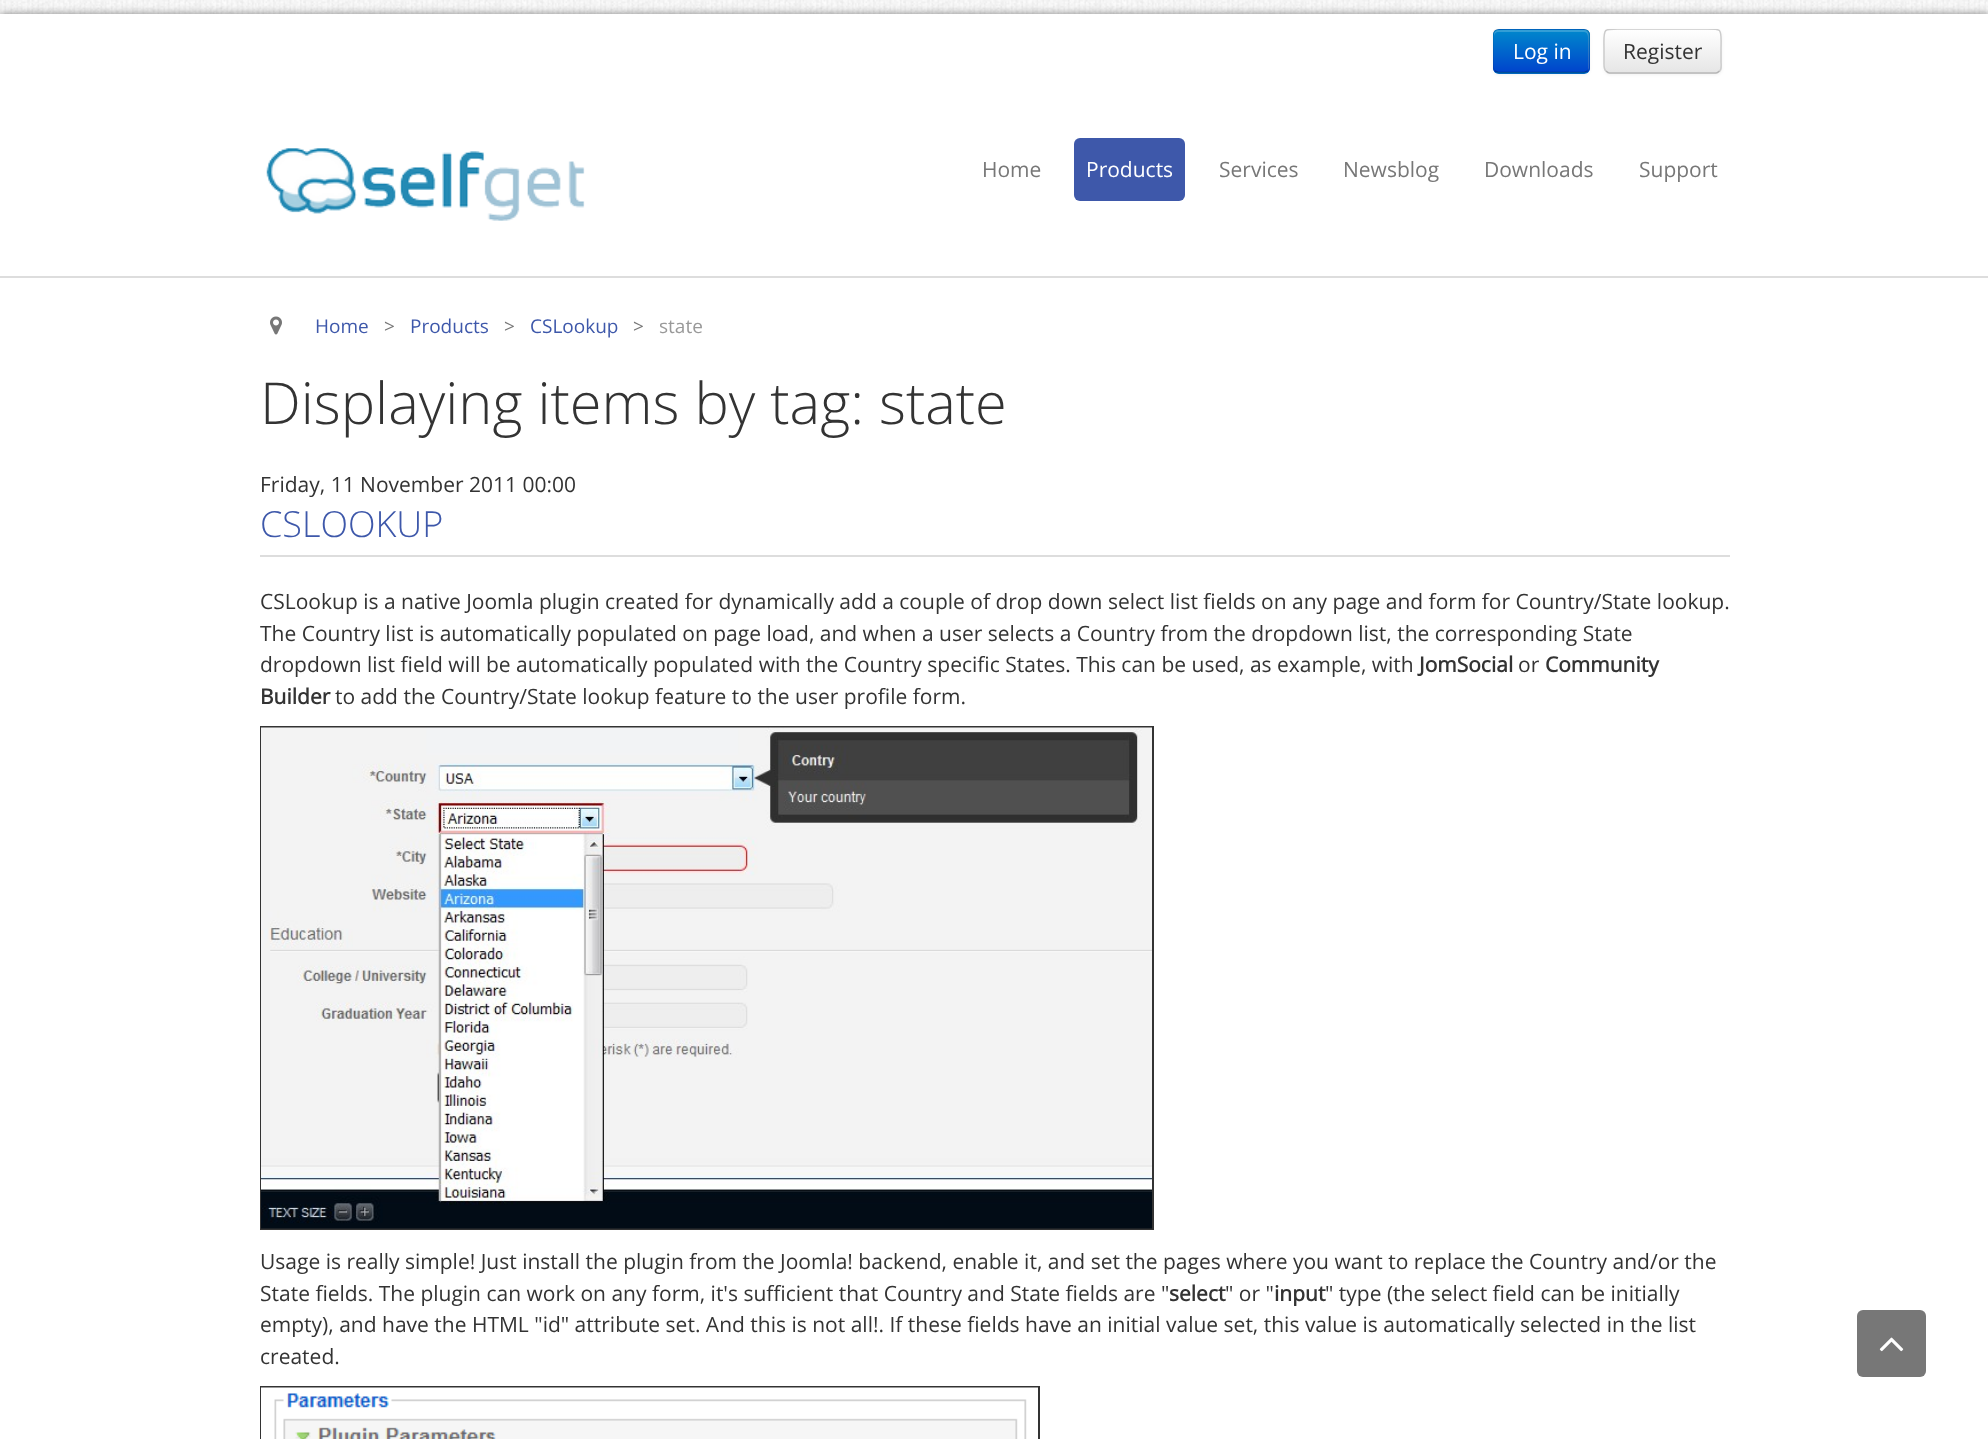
<svg xmlns="http://www.w3.org/2000/svg" width="1988" height="1439" viewBox="0 0 1988 1439">
  <defs>
    <clipPath id="clip1"><rect x="1493" y="29" width="97" height="45" rx="6"/></clipPath>
    <linearGradient id="g1" gradientUnits="userSpaceOnUse" x1="1541" y1="30" x2="1541" y2="72"><stop offset="0" stop-color="#08c"/><stop offset="1" stop-color="#04c"/></linearGradient>
    <clipPath id="clip2"><path d="M1493 29h237v45H1493z"/></clipPath>
    <clipPath id="clip3"><rect x="1604" y="29" width="118" height="45" rx="6"/></clipPath>
    <linearGradient id="g2" gradientUnits="userSpaceOnUse" x1="1663" y1="30" x2="1663" y2="72"><stop offset="0" stop-color="#fff"/><stop offset="1" stop-color="#e6e6e6"/></linearGradient>
  </defs>
  <rect width="100%" height="100%" fill="#fff"/>
  <image x="0" y="0" width="1988" height="14" href="img/1.png"/>
  <path d="M0 14h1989v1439H0z" fill="#00000078" filter="blur(4.5px)"/>
  <path d="M0 14h1988v1425H0z" fill="#fff"/>
  <rect x="1493" y="30" width="97" height="45" rx="6" fill="#0000000d" filter="blur(1.5px)"/>
  <rect x="1493" y="29" width="97" height="45" rx="6" fill="#006dcc"/>
  <g clip-path="url(#clip1)">
    <path d="M1493 30h97v42H1493z" fill="url(#g1)"/>
  </g>
  <path d="M1498 32H1584C1589 32 1588 39 1588 42V70C1589 69 1589 68 1589 67V35C1589 32 1587 30 1584 30H1499C1496 30 1494 32 1494 35V36C1494 34 1496 32 1498 32Z" fill="#ffffff33"/>
  <path d="M1587.5 71L1584.5 72.5H1498L1495 71" fill="none" stroke="#00000040" stroke-width="1.5"/>
  <g clip-path="url(#clip2)">
    <path d="M1495 71C1492.5 69 1493 65 1493 62V51C1493 27.5 1489.5 29 1513 29H1570C1593 29 1589 27.5 1589 51V62C1589 65 1590 69 1587.5 71" fill="none" stroke="#0000001a" stroke-width="1.5"/>
  </g>
  <rect x="1604" y="30" width="118" height="45" rx="6" fill="#0000000d" filter="blur(1.5px)"/>
  <rect x="1604" y="29" width="118" height="45" rx="6" fill="#f5f5f5"/>
  <g clip-path="url(#clip3)">
    <path d="M1604 30h118v42H1604z" fill="url(#g2)"/>
  </g>
  <path d="M1610 32H1716C1721 32 1720 39 1720 42V70C1721 69 1721 68 1721 67V35C1721 32 1719 30 1716 30H1610C1607 30 1605 32 1605 35V36C1605 34 1607 32 1610 32Z" fill="#ffffff33"/>
  <path d="M1719.5 71C1718.5 72 1717.5 73 1716 73H1609.5C1608 73 1607 72 1606 71" fill="none" stroke="#b3b3b3" stroke-width="1.5"/>
  <g clip-path="url(#clip2)">
    <path d="M1606 71C1603.5 69 1604 65 1604 62V51C1604 26 1601 29 1627 29H1698C1724.5 29 1721 26 1721 51V62C1721 65 1722 69 1719.5 71" fill="none" stroke="#ccc" stroke-width="1.5"/>
  </g>
  <path d="M0 276h1988v2H0z" fill="#ddd"/>
  <image x="266" y="148" width="319" height="73" href="img/2.png"/>
  <rect x="1074" y="138" width="111" height="63" rx="6" fill="#3e58aa"/>
  <image x="270" y="316" width="12" height="19" href="img/3.png"/>
  <path d="M260 555h1470v2H260z" fill="#ddd"/>
  <path d="M261 727h892v502H261z" fill="none" stroke="#333" stroke-width="2"/>
  <image x="261" y="727" width="891" height="502" href="img/4.png"/>
  <path d="M261 1387h778v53H261z" fill="none" stroke="#333" stroke-width="2"/>
  <image x="261" y="1387" width="777" height="52" href="img/5.png"/>
  <rect x="1857" y="1310" width="69" height="67" rx="6" fill="#777"/>
  <image x="1879" y="1337" width="25" height="15" href="img/6.png"/>
  <text x="1513" y="59" font-family="Open Sans" font-size="21" fill="#fff">Log in</text>
  <text x="1623" y="59" font-family="Open Sans" font-size="21" fill="#333">Register</text>
  <text x="982" y="177" font-family="Open Sans" font-size="21" fill="#777">Home</text>
  <text x="1086" y="177" font-family="Open Sans" font-size="21" fill="#fff">Products</text>
  <g font-family="Open Sans" font-size="21" fill="#777">
    <text x="1219" y="177">Services</text>
    <text x="1343" y="177">Newsblog</text>
    <text x="1484" y="177">Downloads</text>
    <text x="1639" y="177">Support</text>
  </g>
  <text x="315" y="333" font-family="Open Sans" font-size="19" fill="#3e58aa">Home</text>
  <text x="384" y="333" font-family="Open Sans" font-size="19" fill="#777">&gt;</text>
  <text x="410" y="333" font-family="Open Sans" font-size="19" fill="#3e58aa">Products</text>
  <text x="504" y="333" font-family="Open Sans" font-size="19" fill="#777">&gt;</text>
  <text x="530" y="333" font-family="Open Sans" font-size="19" fill="#3e58aa">CSLookup</text>
  <text x="633" y="333" font-family="Open Sans" font-size="19" fill="#777">&gt;</text>
  <text x="659" y="333" font-family="Open Sans" font-size="19" fill="#999">state</text>
  <text x="260" y="424" font-family="Open Sans" font-size="57.75" font-weight="300" fill="#333">Displaying items by tag: state</text>
  <text x="260" y="492" font-family="Open Sans" font-size="21" fill="#333">Friday, 11 November 2011 00:00</text>
  <text x="260" y="537" font-family="Open Sans" font-size="36" font-weight="300" fill="#3e58aa">CSLOOKUP</text>
  <g font-family="Open Sans" font-size="21" fill="#333">
    <text x="260" y="609">CSLookup is a native Joomla plugin created for dynamically add a couple of drop down select list fields on any page and form for Country/State lookup.</text>
    <text x="260" y="641">The Country list is automatically populated on page load, and when a user selects a Country from the dropdown list, the corresponding State</text>
    <text x="260" y="672">dropdown list field will be automatically populated with the Country specific States. This can be used, as example, with</text>
  </g>
  <text x="1419" y="672" font-family="Open Sans" font-size="21" font-weight="bold" fill="#333">JomSocial</text>
  <text x="1518" y="672" font-family="Open Sans" font-size="21" fill="#333">or</text>
  <g font-family="Open Sans" font-size="21" font-weight="bold" fill="#333">
    <text x="1545" y="672">Community</text>
    <text x="260" y="704">Builder</text>
  </g>
  <g font-family="Open Sans" font-size="21" fill="#333">
    <text x="335" y="704">to add the Country/State lookup feature to the user profile form.</text>
    <text x="260" y="1269">Usage is really simple! Just install the plugin from the Joomla! backend, enable it, and set the pages where you want to replace the Country and/or the</text>
    <text x="260" y="1301">State fields. The plugin can work on any form, it's sufficient that Country and State fields are "</text>
  </g>
  <text x="1169" y="1301" font-family="Open Sans" font-size="21" font-weight="bold" fill="#333">select</text>
  <text x="1225" y="1301" font-family="Open Sans" font-size="21" fill="#333">" or "</text>
  <text x="1274" y="1301" font-family="Open Sans" font-size="21" font-weight="bold" fill="#333">input</text>
  <g font-family="Open Sans" font-size="21" fill="#333">
    <text x="1325" y="1301">" type (the select field can be initially</text>
    <text x="260" y="1332">empty), and have the HTML "id" attribute set. And this is not all!. If these fields have an initial value set, this value is automatically selected in the list</text>
    <text x="260" y="1364">created.</text>
  </g>
</svg>
